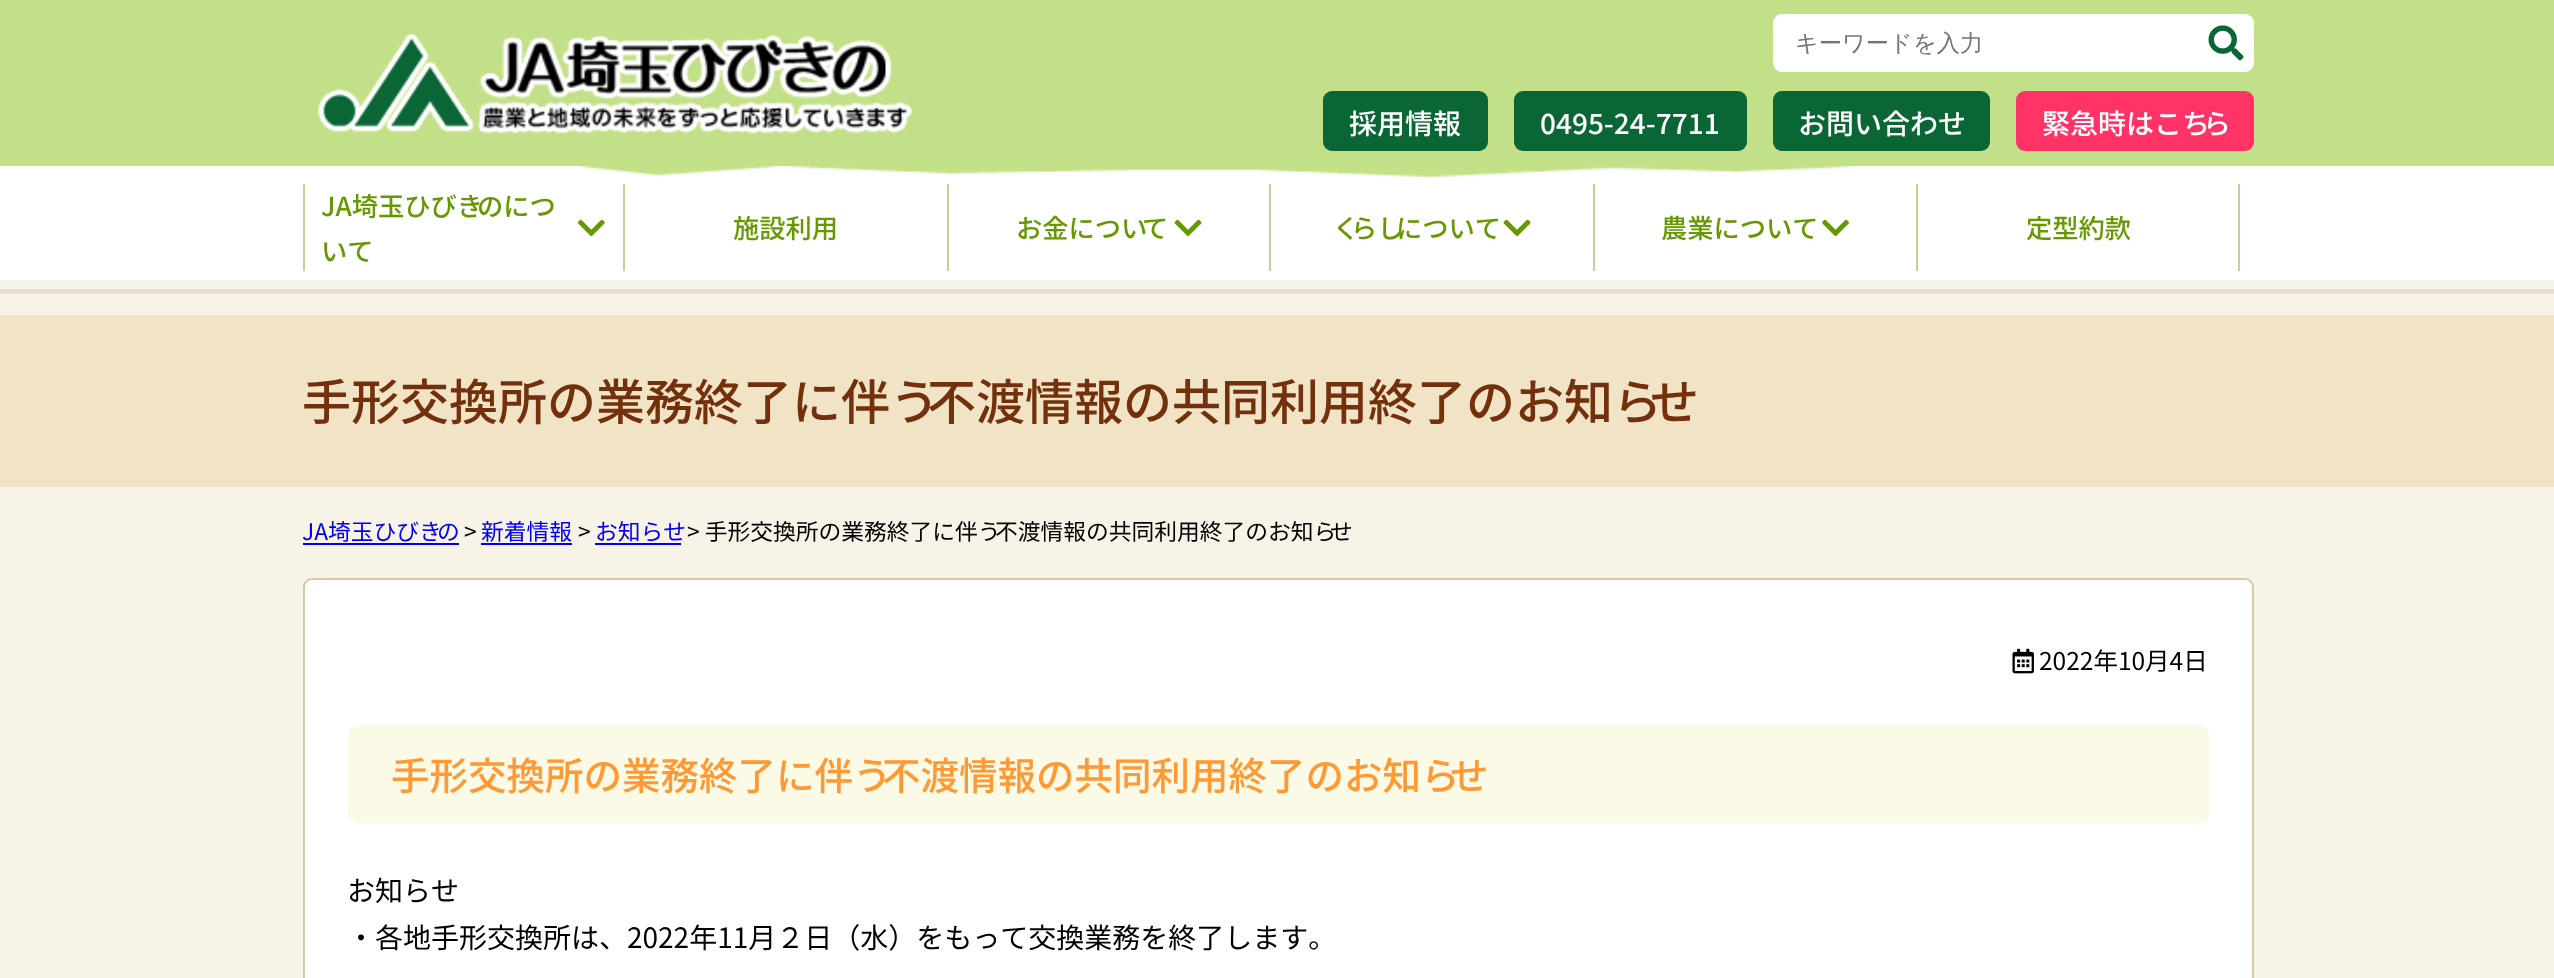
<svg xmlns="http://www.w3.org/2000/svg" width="2554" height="978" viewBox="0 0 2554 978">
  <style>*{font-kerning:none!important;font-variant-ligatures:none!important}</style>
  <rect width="100%" height="100%" fill="#f7f4e7"/>
  <path d="M0 0h2554v166H0z" fill="#c2e088"/>
  <image x="318" y="33" width="595" height="101" href="img/1.png"/>
  <rect x="1774" y="15" width="479" height="56" rx="8" fill="#fff" stroke="#fff" stroke-width="2"/>
  <image x="2208" y="25" width="36" height="36" href="img/2.png"/>
  <rect x="1323" y="91" width="165" height="60" rx="9" fill="#0a6635"/>
  <rect x="1514" y="91" width="233" height="60" rx="9" fill="#0a6635"/>
  <rect x="1773" y="91" width="217" height="60" rx="9" fill="#0a6635"/>
  <rect x="2016" y="91" width="238" height="60" rx="9" fill="#f36"/>
  <path d="M0 166h2554v114H0z" fill="#fff"/>
  <image x="579" y="166" width="1278" height="12" href="img/3.png"/>
  <path d="M623 184h2v87H623z" fill="#cc9"/>
  <path d="M303 184h2v87H303z" fill="#cc9"/>
  <image x="577" y="219" width="28" height="18" href="img/4.png"/>
  <path d="M947 184h2v87H947z" fill="#cc9"/>
  <path d="M1269 184h2v87H1269z" fill="#cc9"/>
  <image x="1174" y="219" width="28" height="18" href="img/5.png"/>
  <path d="M1593 184h2v87H1593z" fill="#cc9"/>
  <image x="1503" y="219" width="28" height="18" href="img/5.png"/>
  <path d="M1916 184h2v87H1916z" fill="#cc9"/>
  <image x="1822" y="219" width="27" height="18" href="img/6.png"/>
  <path d="M2238 184h2v87H2238z" fill="#cc9"/>
  <path d="M0 289h2554v5H0z" fill="#e8e1d1"/>
  <path d="M0 315h2554v172H0z" fill="#f1e3c5"/>
  <path d="M303 543h156v2H303z" fill="#00e"/>
  <path d="M481 543h91v2H481z" fill="#00e"/>
  <path d="M595 543h86v2H595z" fill="#00e"/>
  <rect x="304" y="579" width="1949" height="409" rx="8" fill="#fff" stroke="#d3cba7" stroke-width="2"/>
  <image x="2012" y="648" width="22" height="26" href="img/7.png"/>
  <rect x="348" y="725" width="1861" height="98" rx="9" fill="#fbfae7"/>
  <text x="1795" y="51" font-family="WenQuanYi Zen Hei" font-size="23.25" font-weight="500" fill="#757575">キーワードを入力</text>
  <g font-family="Noto Sans JP" font-size="28" font-weight="500" fill="#fff">
    <text x="1349" y="134">採用情報</text>
    <text x="1540" y="134">0495-24-7711</text>
    <text x="1798" y="134">お問い合わせ</text>
    <text x="2042" y="134">緊急時はこち</text>
    <text x="2203" y="134">ら</text>
  </g>
  <g font-family="Noto Sans JP" font-size="26.25" font-weight="500" fill="#690">
    <text x="321" y="216">JA埼玉ひびき</text>
    <text x="477" y="216">のにつ</text>
    <text x="321" y="261">いて</text>
    <text x="733" y="238">施設利用</text>
    <text x="1016" y="238">お金につい</text>
    <text x="1142" y="238">て</text>
    <text x="1333" y="238">く</text>
    <text x="1351" y="238">らし</text>
    <text x="1396" y="238">について</text>
    <text x="1661" y="238">農業について</text>
    <text x="2026" y="238">定型約款</text>
  </g>
  <text x="302" y="420" font-family="Noto Sans JP" font-size="49" font-weight="500" fill="#73300c">手形交換所の業務終了に伴う</text>
  <text x="927" y="420" font-family="Noto Sans JP" font-size="49" font-weight="500" fill="#73300c">不渡情報の共同利用終了のお知ら</text>
  <text x="1650" y="420" font-family="Noto Sans JP" font-size="49" font-weight="500" fill="#73300c">せ</text>
  <text x="302" y="540" font-family="Noto Sans JP" font-size="22.75" fill="#00e">JA埼玉ひびき</text>
  <text x="437" y="540" font-family="Noto Sans JP" font-size="22.75" fill="#00e">の</text>
  <text x="464" y="540" font-family="Noto Sans JP" font-size="22.75" fill="#000">&gt;</text>
  <text x="481" y="540" font-family="Noto Sans JP" font-size="22.75" fill="#00e">新着情報</text>
  <text x="578" y="540" font-family="Noto Sans JP" font-size="22.75" fill="#000">&gt;</text>
  <text x="595" y="540" font-family="Noto Sans JP" font-size="22.75" fill="#00e">お知らせ</text>
  <text x="687" y="540" font-family="Noto Sans JP" font-size="22.75" fill="#000">&gt; 手形交換所の業務終了に伴う</text>
  <text x="995" y="540" font-family="Noto Sans JP" font-size="22.75" fill="#000">不渡情報の共同利用終了のお知ら</text>
  <text x="1330" y="540" font-family="Noto Sans JP" font-size="22.75" fill="#000">せ</text>
  <text x="2039" y="670" font-family="Noto Sans JP" font-size="24.5" fill="#000">2022年10月4日</text>
  <text x="391" y="790" font-family="Noto Sans JP" font-size="38.5" font-weight="500" fill="#f93">手形交換所の業務終了に伴う</text>
  <text x="882" y="790" font-family="Noto Sans JP" font-size="38.5" font-weight="500" fill="#f93">不渡情報の共同利用終了のお知ら</text>
  <text x="1450" y="790" font-family="Noto Sans JP" font-size="38.5" font-weight="500" fill="#f93">せ</text>
  <text x="347" y="901" font-family="Noto Sans JP" font-size="28" fill="#000">お知らせ</text>
  <text x="347" y="948" font-family="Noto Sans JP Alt" font-size="28" fill="#000">・各地手形交換所は、2022年11月２日（水）をもって交換業務を終了します。</text>
</svg>
